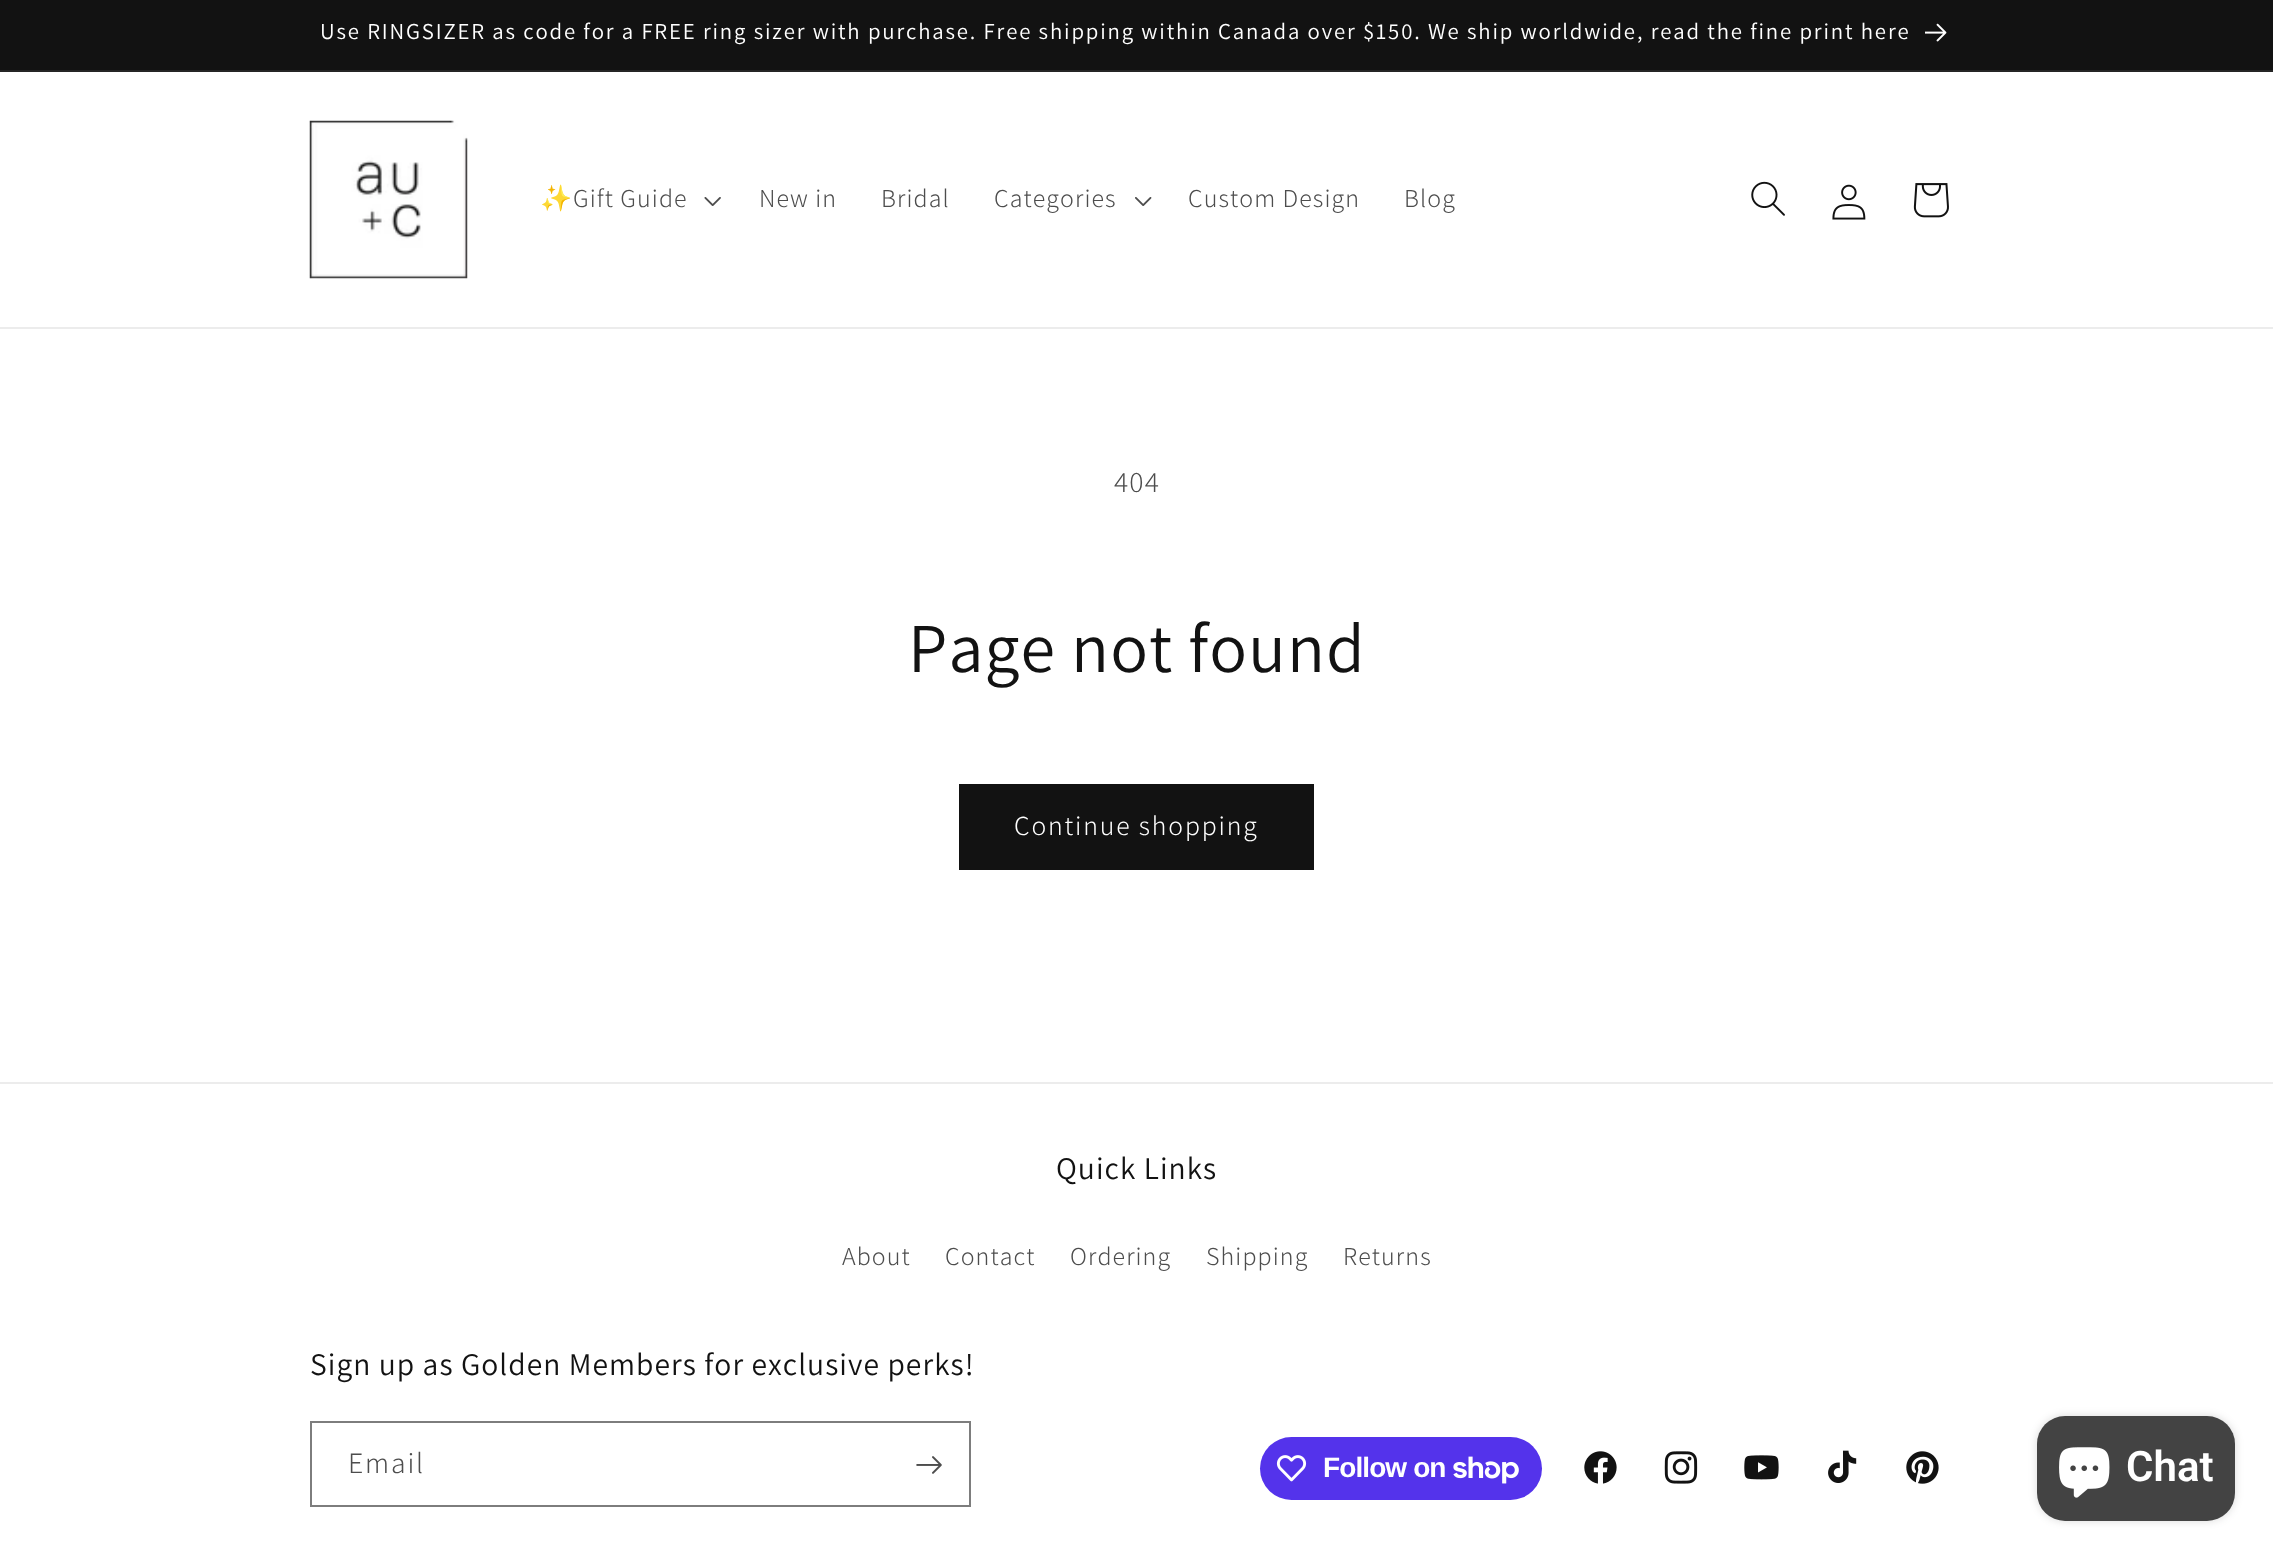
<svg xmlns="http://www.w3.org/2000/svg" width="2273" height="1557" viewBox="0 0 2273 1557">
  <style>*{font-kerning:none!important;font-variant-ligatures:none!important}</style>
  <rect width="100%" height="100%" fill="#fff"/>
  <path d="M0 0h2273v70H0z" fill="#121212"/>
  <path d="M0 70h2273v2H0z" fill="#252525"/>
  <image x="1925" y="23" width="22" height="19" href="img/1.png"/>
  <path d="M0 327h2273v2H0z" fill="#ececec"/>
  <image x="309" y="120" width="159" height="159" href="img/2.png"/>
  <image x="704" y="197" width="17" height="9" href="img/3.png"/>
  <image x="1135" y="197" width="17" height="9" href="img/4.png"/>
  <image x="1751" y="181" width="34" height="35" href="img/5.png"/>
  <image x="1832" y="184" width="34" height="36" href="img/6.png"/>
  <image x="1913" y="183" width="36" height="35" href="img/7.png"/>
  <path d="M959 784h355v86H959z" fill="#121212"/>
  <path d="M0 1082h2273v2H0z" fill="#ececec"/>
  <path d="M311 1422h659v84H311z" fill="none" stroke="#7d7d7d" stroke-width="2"/>
  <image x="916" y="1456" width="26" height="18" href="img/8.png"/>
  <rect x="1260" y="1437" width="282" height="63" rx="31.5" fill="#5433eb"/>
  <image x="1276" y="1455" width="31" height="27" href="img/9.png"/>
  <image x="1453" y="1456" width="66" height="28" href="img/10.png"/>
  <image x="1584" y="1451" width="33" height="33" href="img/11.png"/>
  <image x="1664" y="1451" width="34" height="33" href="img/12.png"/>
  <image x="1744" y="1455" width="35" height="25" href="img/13.png"/>
  <image x="1828" y="1450" width="29" height="33" href="img/14.png"/>
  <image x="1906" y="1451" width="33" height="33" href="img/15.png"/>
  <rect x="2037" y="1416" width="198" height="105" rx="28" fill="#00000026" filter="blur(4.5px)"/>
  <rect x="2037" y="1416" width="198" height="105" rx="28" fill="#434343"/>
  <image x="2059" y="1447" width="51" height="51" href="img/16.png"/>
  <text x="320" y="39" font-family="Assistant" font-size="22.75" letter-spacing="1.84" fill="#fff">Use RINGSIZER as code for a FREE ring sizer with purchase. Free shipping within Canada over $150. We ship worldwide, read the fine print here</text>
  <text x="540" y="207" font-family="Noto Color Emoji" font-size="25.75" letter-spacing="1.1" fill="#4d4d4d">✨</text>
  <g font-family="Assistant" font-size="25.75" font-weight="300" letter-spacing="1.1" fill="#4d4d4d">
    <text x="573" y="207">Gift Guide</text>
    <text x="759" y="207">New in</text>
    <text x="881" y="207">Bridal</text>
    <text x="994" y="207">Categories</text>
    <text x="1188" y="207">Custom Design</text>
    <text x="1404" y="207">Blog</text>
  </g>
  <text x="1114" y="492" font-family="Assistant" font-size="29.5" font-weight="300" letter-spacing="1.1" fill="#4d4d4d">404</text>
  <text x="908" y="672" font-family="Assistant" font-size="70" letter-spacing="1.05" fill="#121212">Page not found</text>
  <text x="1014" y="835" font-family="Assistant" font-size="27.5" font-weight="300" letter-spacing="1.84" fill="#fff">Continue shopping</text>
  <text x="1056" y="1179" font-family="Assistant" font-size="31.5" letter-spacing="1.05" fill="#121212">Quick Links</text>
  <g font-family="Assistant" font-size="25.75" font-weight="300" letter-spacing="1.1" fill="#4d4d4d">
    <text x="842" y="1265">About</text>
    <text x="945" y="1265">Contact</text>
    <text x="1070" y="1265">Ordering</text>
    <text x="1206" y="1265">Shipping</text>
    <text x="1343" y="1265">Returns</text>
  </g>
  <text x="310" y="1375" font-family="Assistant" font-size="31.5" letter-spacing="1.05" fill="#121212">Sign up as Golden Members for exclusive perks!</text>
  <text x="348" y="1473" font-family="Assistant" font-size="29.5" font-weight="300" letter-spacing="1.84" fill="#4d4d4d">Email</text>
  <text x="1323" y="1477" font-family="Liberation Sans" font-size="28" font-weight="bold" letter-spacing="-0.9" fill="#fff">Follow on</text>
  <text x="2126" y="1481" font-family="Roboto" font-size="42" font-weight="600" fill="#fff">Chat</text>
</svg>
